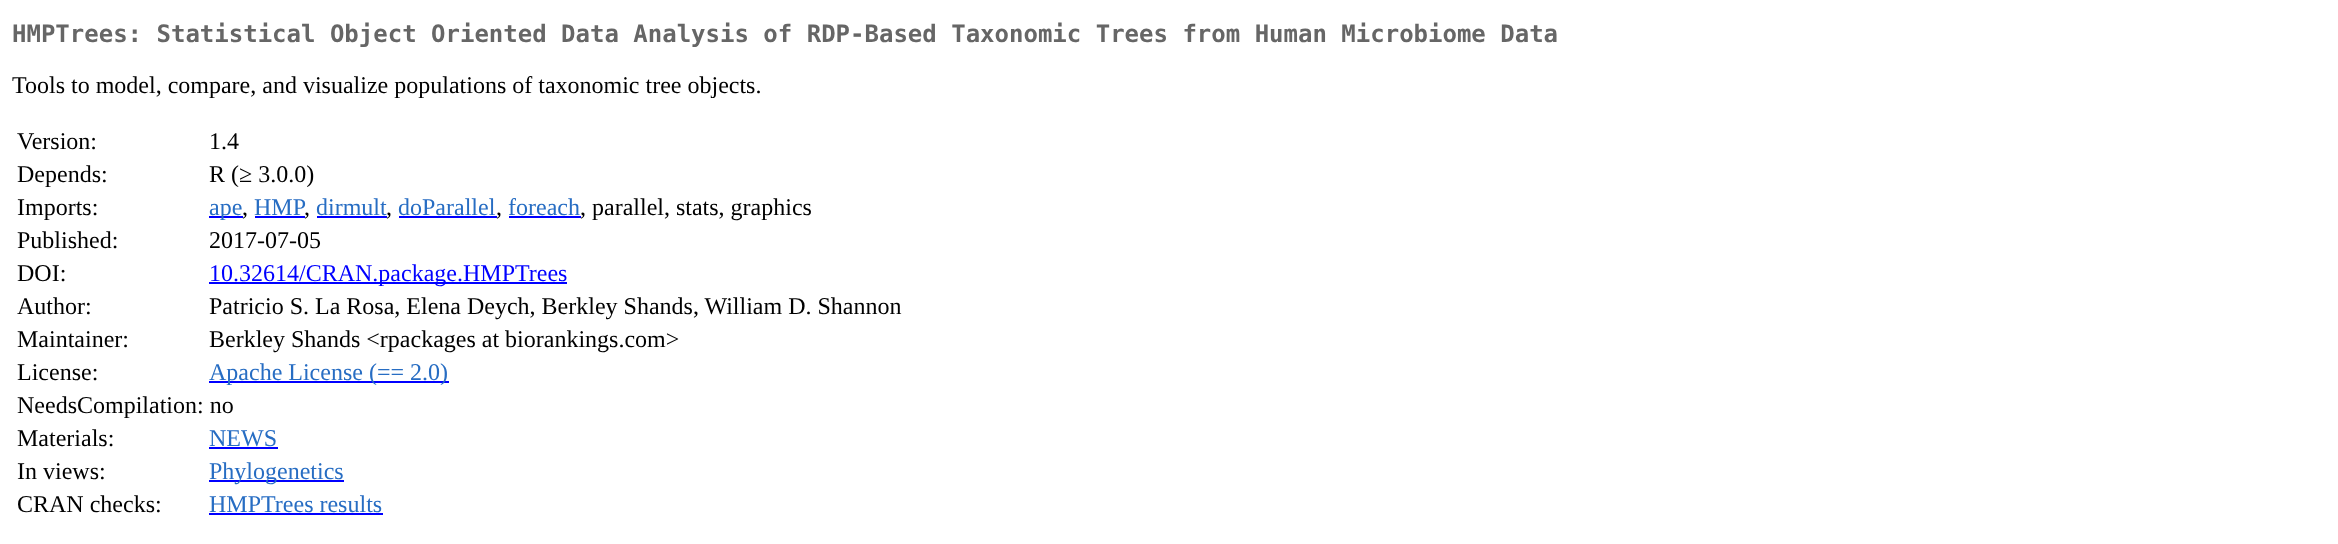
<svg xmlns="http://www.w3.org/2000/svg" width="2338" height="544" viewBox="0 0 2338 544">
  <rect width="100%" height="100%" fill="#fff"/>
  <path d="M209 216h34v2H209z" fill="#00f"/>
  <path d="M255 216h50v2H255z" fill="#00f"/>
  <path d="M317 216h70v2H317z" fill="#00f"/>
  <path d="M399 216h98v2H399z" fill="#00f"/>
  <path d="M509 216h72v2H509z" fill="#00f"/>
  <path d="M209 282h358v2H209z" fill="#00f"/>
  <path d="M209 381h240v2H209z" fill="#00f"/>
  <path d="M209 447h69v2H209z" fill="#00f"/>
  <path d="M209 480h135v2H209z" fill="#00f"/>
  <path d="M209 513h174v2H209z" fill="#00f"/>
  <text x="12" y="42" font-family="DejaVu Sans Mono" font-size="24" font-weight="bold" fill="#666">HMPTrees: Statistical Object Oriented Data Analysis of RDP-Based Taxonomic Trees from Human Microbiome Data</text>
  <g font-family="Liberation Serif" font-size="24" fill="#000">
    <text x="12" y="93">Tools to model, compare, and visualize populations of taxonomic tree objects.</text>
    <text x="17" y="149">Version:</text>
    <text x="209" y="149">1.4</text>
    <text x="17" y="182">Depends:</text>
    <text x="209" y="182">R (≥ 3.0.0)</text>
    <text x="17" y="215">Imports:</text>
  </g>
  <text x="209" y="215" font-family="Liberation Serif" font-size="24" fill="#276dc3">ape</text>
  <text x="242" y="215" font-family="Liberation Serif" font-size="24" fill="#000">,</text>
  <text x="254" y="215" font-family="Liberation Serif" font-size="24" fill="#276dc3">HMP</text>
  <text x="304" y="215" font-family="Liberation Serif" font-size="24" fill="#000">,</text>
  <text x="316" y="215" font-family="Liberation Serif" font-size="24" fill="#276dc3">dirmult</text>
  <text x="386" y="215" font-family="Liberation Serif" font-size="24" fill="#000">,</text>
  <text x="398" y="215" font-family="Liberation Serif" font-size="24" fill="#276dc3">doParallel</text>
  <text x="496" y="215" font-family="Liberation Serif" font-size="24" fill="#000">,</text>
  <text x="508" y="215" font-family="Liberation Serif" font-size="24" fill="#276dc3">foreach</text>
  <g font-family="Liberation Serif" font-size="24" fill="#000">
    <text x="580" y="215">, parallel, stats, graphics</text>
    <text x="17" y="248">Published:</text>
    <text x="209" y="248">2017-07-05</text>
    <text x="17" y="281">DOI:</text>
  </g>
  <text x="209" y="281" font-family="Liberation Serif" font-size="24" fill="#00f">10.32614/CRAN.package.HMPTrees</text>
  <g font-family="Liberation Serif" font-size="24" fill="#000">
    <text x="17" y="314">Author:</text>
    <text x="209" y="314">Patricio S. La Rosa, Elena Deych, Berkley Shands, William D. Shannon</text>
    <text x="17" y="347">Maintainer:</text>
    <text x="209" y="347">Berkley Shands &lt;rpackages at biorankings.com&gt;</text>
    <text x="17" y="380">License:</text>
  </g>
  <text x="209" y="380" font-family="Liberation Serif" font-size="24" fill="#276dc3">Apache License (== 2.0)</text>
  <g font-family="Liberation Serif" font-size="24" fill="#000">
    <text x="17" y="413">NeedsCompilation: no</text>
    <text x="17" y="446">Materials:</text>
  </g>
  <text x="209" y="446" font-family="Liberation Serif" font-size="24" fill="#276dc3">NEWS</text>
  <text x="17" y="479" font-family="Liberation Serif" font-size="24" fill="#000">In views:</text>
  <text x="209" y="479" font-family="Liberation Serif" font-size="24" fill="#276dc3">Phylogenetics</text>
  <text x="17" y="512" font-family="Liberation Serif" font-size="24" fill="#000">CRAN checks:</text>
  <text x="209" y="512" font-family="Liberation Serif" font-size="24" fill="#276dc3">HMPTrees results</text>
</svg>
